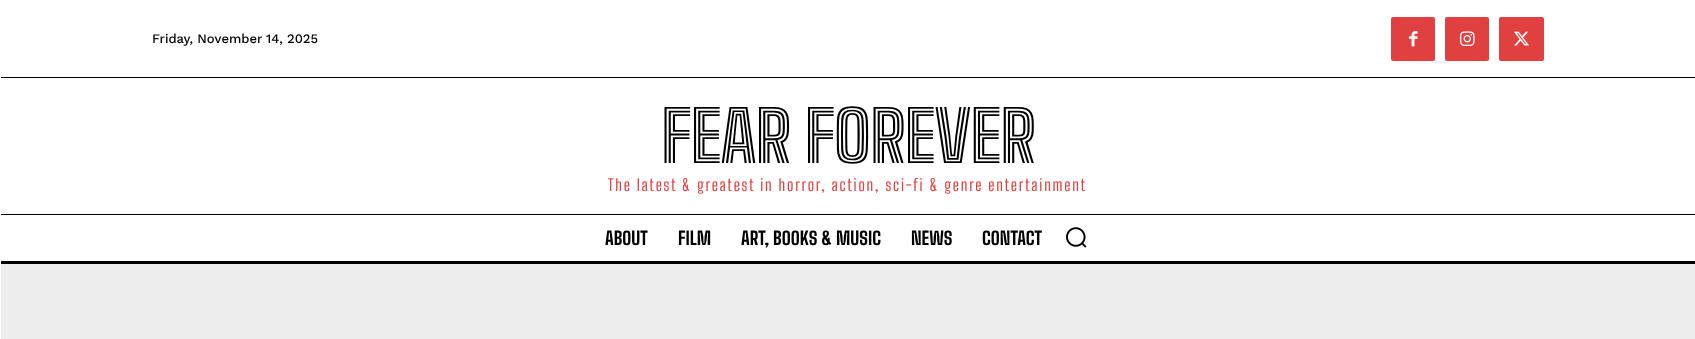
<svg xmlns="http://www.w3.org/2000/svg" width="1695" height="339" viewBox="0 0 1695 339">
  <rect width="100%" height="100%" fill="#fff"/>
  <rect x="1391" y="17" width="44" height="44" rx="2" fill="#e04040"/>
  <image x="1409" y="31" width="9" height="16" href="img/1.png"/>
  <rect x="1445" y="17" width="44" height="44" rx="2" fill="#e04040"/>
  <image x="1460" y="31" width="15" height="15" href="img/2.png"/>
  <rect x="1499" y="17" width="45" height="44" rx="2" fill="#e04040"/>
  <image x="1514" y="31" width="15" height="15" href="img/3.png"/>
  <path d="M1 77h1694v1H1z" fill="#000"/>
  <path d="M1 214h1694v1H1z" fill="#000"/>
  <path d="M1 261h1694v3H1z" fill="#000"/>
  <image x="1066" y="227" width="21" height="21" href="img/4.png"/>
  <path d="M1 264h1694v75H1z" fill="#ededed"/>
  <text x="152" y="43" font-family="Work Sans" font-size="13" font-weight="500" fill="#000">Friday, November 14, 2025</text>
  <text x="661" y="163" font-family="Big Shoulders Inline Text" font-size="70" font-weight="900" letter-spacing="-1" fill="#000">FEAR FOREVER</text>
  <text x="608" y="191" font-family="Big Shoulders Text" font-size="16" letter-spacing="1.8" fill="#e04040">The latest &amp; greatest in horror, action, sci-fi &amp; genre entertainment</text>
  <g font-family="Big Shoulders Text" font-size="18" font-weight="800" fill="#000">
    <text x="605" y="245">ABOUT</text>
    <text x="678" y="245">FILM</text>
    <text x="741" y="245">ART, BOOKS &amp; MUSIC</text>
    <text x="911" y="245">NEWS</text>
    <text x="982" y="245">CONTACT</text>
  </g>
</svg>
